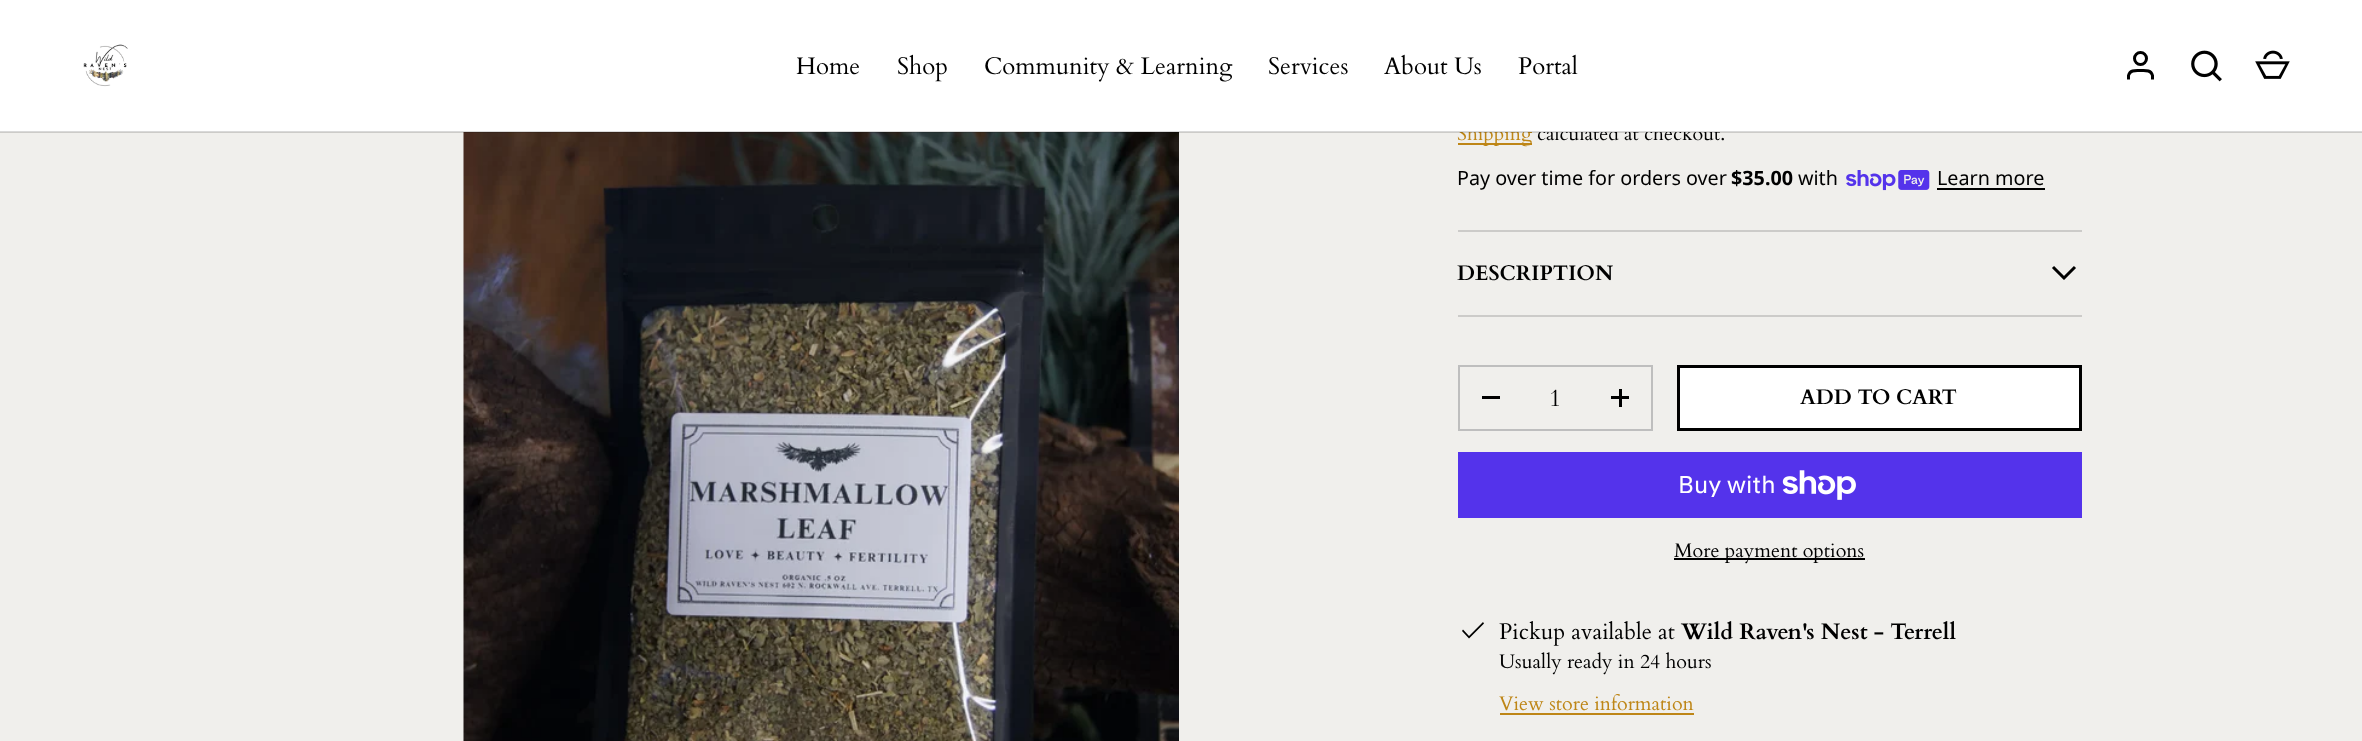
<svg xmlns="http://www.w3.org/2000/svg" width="2362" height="741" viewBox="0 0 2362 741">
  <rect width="100%" height="100%" fill="#f0efec"/>
  <image x="463" y="132" width="716" height="609" href="img/4.png"/>
  <path d="M1458 143h74v2H1458z" fill="#be8617"/>
  <image x="1846" y="170" width="84" height="21" href="img/5.png"/>
  <path d="M1937 188h108v2H1937z" fill="#000"/>
  <path d="M1458 230h624v2H1458z" fill="#cccbc9"/>
  <path d="M1458 315h624v2H1458z" fill="#cccbc9"/>
  <path d="M2053 267L2065 279M2075 267L2063 279" fill="none" stroke="#000" stroke-width="3"/>
  <path d="M1459 366h193v64H1459z" fill="none" stroke="#bebebe" stroke-width="2"/>
  <path d="M1482 396h18v3H1482z" fill="#000"/>
  <path d="M1611 396h18v3H1611z" fill="#000"/>
  <path d="M1619 389h3v18H1619z" fill="#000"/>
  <path d="M1678.5 366.5h402v63H1678.5z" fill="#fff" stroke="#000" stroke-width="3"/>
  <path d="M1458 452h624v66H1458z" fill="#5433eb"/>
  <image x="1782" y="470" width="74" height="30" href="img/6.png"/>
  <path d="M1674 558h191v2H1674z" fill="#000"/>
  <path d="M1483 622L1484 623.5L1469 638.5L1462 631L1463 629.5L1469 636Z" fill="#000"/>
  <path d="M1500 713h194v2H1500z" fill="#be8617"/>
  <text x="1457" y="140" font-family="Cardo" font-size="19.75" fill="#be8617">Shipping</text>
  <text x="1537" y="140" font-family="Cardo" font-size="19.75" fill="#000">calculated at checkout.</text>
  <path d="M0 0h2362v132H0z" fill="#fff"/>
  <image x="83" y="44" width="45" height="43" href="img/1.png"/>
  <image x="2255" y="50" width="35" height="29" href="img/3.png"/>
  <g font-family="Cardo" font-size="24" fill="#000">
    <text x="1518" y="74">Portal</text>
    <text x="1384" y="74">About Us</text>
    <text x="1268" y="74">Services</text>
    <text x="984" y="74">Community &amp; Learning</text>
    <text x="897" y="74">Shop</text>
    <text x="796" y="74">Home</text>
  </g>
  <image x="2191" y="50" width="31" height="32" href="img/2.png"/>
  <circle cx="2140.5" cy="58.5" r="6" fill="none" stroke="#000" stroke-width="3"/>
  <path d="M2152.5 79.5V75.5C2151 69.5 2145 70.5 2140.5 70.5C2136 70.5 2130 69.5 2128.5 75.5V79.5" fill="none" stroke="#000" stroke-width="3"/>
  <path d="M0 131h2362v2H0z" fill="#00000026"/>
  <text x="1457" y="185" font-family="Noto Sans" font-size="19.75" fill="#000">Pay over time for orders over</text>
  <text x="1731" y="185" font-family="Noto Sans" font-size="19.75" font-weight="bold" fill="#000">$35.00</text>
  <g font-family="Noto Sans" font-size="19.75" fill="#000">
    <text x="1798" y="185">with</text>
    <text x="1937" y="185">Learn more</text>
  </g>
  <text x="1457" y="280" font-family="Cardo" font-size="21" font-weight="bold" fill="#000">DESCRIPTION</text>
  <text x="1549" y="406" font-family="Cardo" font-size="24" fill="#000">1</text>
  <text x="1800" y="404" font-family="Cardo" font-size="21" font-weight="bold" fill="#000">ADD TO CART</text>
  <path d="M1869.5 397L1878 405L1876 407L1867.5 398.5Z" fill="#fff"/>
  <text x="1678" y="493" font-family="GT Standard" font-size="24" fill="#fff">Buy with</text>
  <text x="1674" y="557" font-family="Cardo" font-size="19.75" fill="#000">More payment options</text>
  <text x="1499" y="639" font-family="Cardo" font-size="22.5" fill="#000">Pickup available at</text>
  <text x="1681" y="639" font-family="Cardo" font-size="22.5" font-weight="bold" fill="#000">Wild Raven's Nest - Terrell</text>
  <text x="1499" y="668" font-family="Cardo" font-size="19.75" fill="#000">Usually ready in 24 hours</text>
  <text x="1499" y="710" font-family="Cardo" font-size="19.75" fill="#be8617">View store information</text>
</svg>
